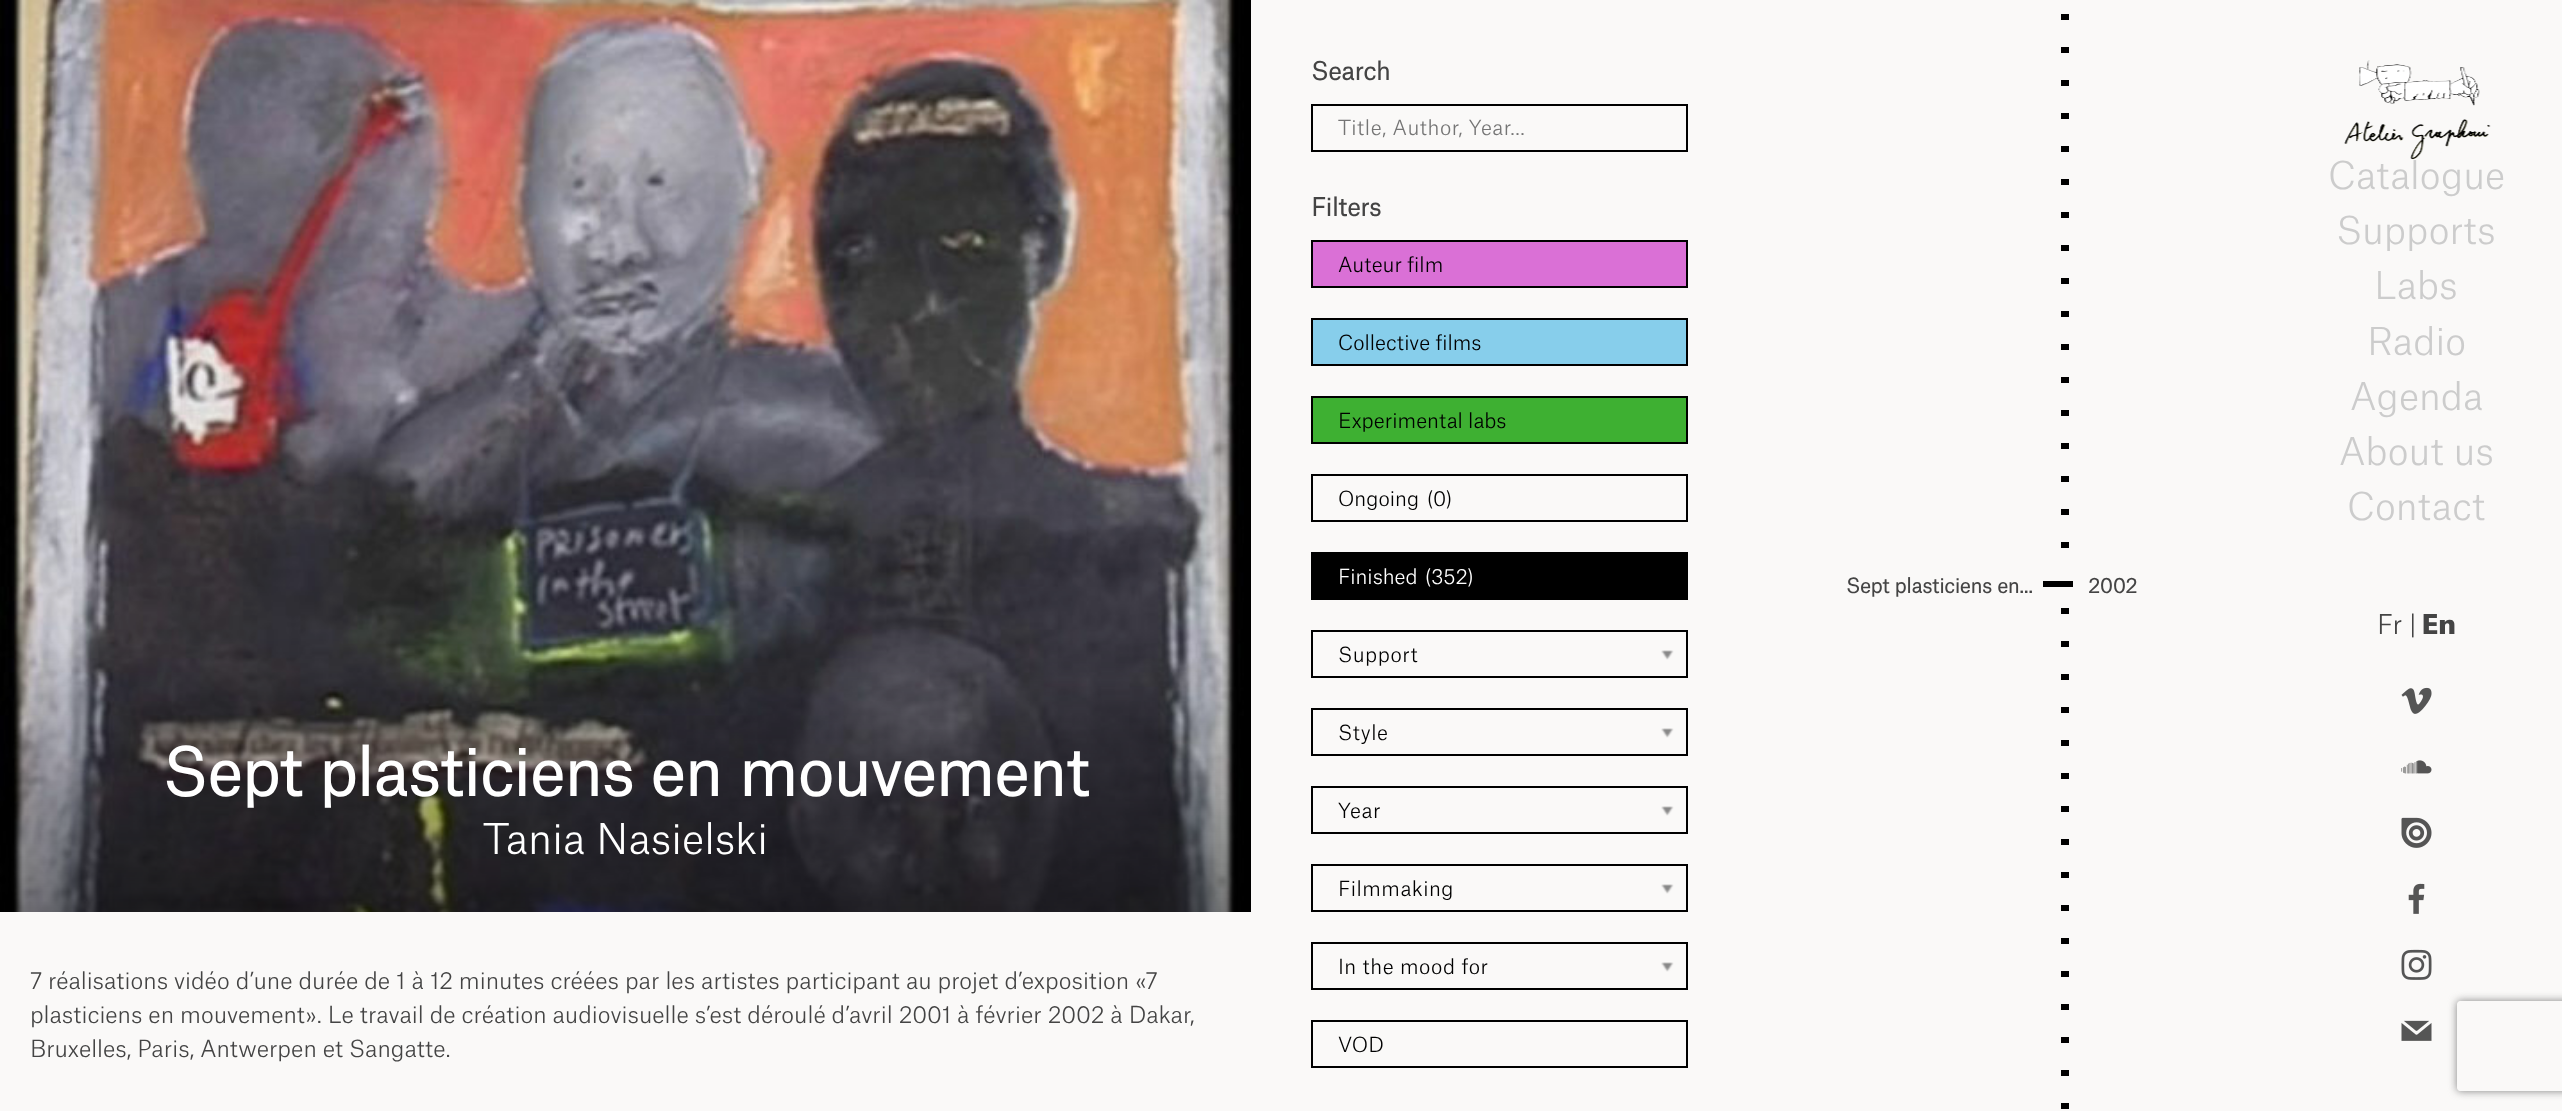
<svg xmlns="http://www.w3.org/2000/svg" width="2562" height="1111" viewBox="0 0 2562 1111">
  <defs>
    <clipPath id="clip1"><path d="M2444 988H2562V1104H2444ZM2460 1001H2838C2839.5 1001 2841 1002.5 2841 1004V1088C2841 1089.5 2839.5 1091 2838 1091H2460C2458.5 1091 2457 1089.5 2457 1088V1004C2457 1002.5 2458.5 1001 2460 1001Z" clip-rule="evenodd"/></clipPath>
  </defs>
  <rect width="100%" height="100%" fill="#faf9f8"/>
  <image x="0" y="0" width="1251" height="912" href="img/1.png"/>
  <path d="M1312 105h375v46H1312z" fill="none" stroke="#000" stroke-width="2"/>
  <path d="M1312 241h375v46H1312z" fill="#da70d6" stroke="#000" stroke-width="2"/>
  <path d="M1312 319h375v46H1312z" fill="#87ceeb" stroke="#000" stroke-width="2"/>
  <path d="M1312 397h375v46H1312z" fill="#3eb032" stroke="#000" stroke-width="2"/>
  <path d="M1312 475h375v46H1312z" fill="none" stroke="#000" stroke-width="2"/>
  <path d="M1311 552h377v48H1311z" fill="#000"/>
  <path d="M1312 631h375v46H1312z" fill="none" stroke="#000" stroke-width="2"/>
  <image x="1661" y="650" width="13" height="10" href="img/2.png"/>
  <path d="M1312 709h375v46H1312z" fill="none" stroke="#000" stroke-width="2"/>
  <image x="1661" y="728" width="13" height="10" href="img/2.png"/>
  <path d="M1312 787h375v46H1312z" fill="none" stroke="#000" stroke-width="2"/>
  <image x="1661" y="806" width="13" height="10" href="img/2.png"/>
  <path d="M1312 865h375v46H1312z" fill="none" stroke="#000" stroke-width="2"/>
  <image x="1661" y="884" width="13" height="10" href="img/2.png"/>
  <path d="M1312 943h375v46H1312z" fill="none" stroke="#000" stroke-width="2"/>
  <image x="1661" y="962" width="13" height="10" href="img/2.png"/>
  <path d="M1312 1021h375v46H1312z" fill="none" stroke="#000" stroke-width="2"/>
  <path d="M2061 14h8v6H2061z" fill="#000"/>
  <path d="M2061 47h8v6H2061z" fill="#000"/>
  <path d="M2061 80h8v6H2061z" fill="#000"/>
  <path d="M2061 113h8v6H2061z" fill="#000"/>
  <path d="M2061 146h8v6H2061z" fill="#000"/>
  <path d="M2061 179h8v6H2061z" fill="#000"/>
  <path d="M2061 212h8v6H2061z" fill="#000"/>
  <path d="M2061 245h8v6H2061z" fill="#000"/>
  <path d="M2061 278h8v6H2061z" fill="#000"/>
  <path d="M2061 311h8v6H2061z" fill="#000"/>
  <path d="M2061 344h8v6H2061z" fill="#000"/>
  <path d="M2061 377h8v6H2061z" fill="#000"/>
  <path d="M2061 410h8v6H2061z" fill="#000"/>
  <path d="M2061 443h8v6H2061z" fill="#000"/>
  <path d="M2061 476h8v6H2061z" fill="#000"/>
  <path d="M2061 509h8v6H2061z" fill="#000"/>
  <path d="M2061 542h8v6H2061z" fill="#000"/>
  <path d="M2043 581h30v6H2043z" fill="#000"/>
  <path d="M2061 608h8v6H2061z" fill="#000"/>
  <path d="M2061 641h8v6H2061z" fill="#000"/>
  <path d="M2061 674h8v6H2061z" fill="#000"/>
  <path d="M2061 707h8v6H2061z" fill="#000"/>
  <path d="M2061 740h8v6H2061z" fill="#000"/>
  <path d="M2061 773h8v6H2061z" fill="#000"/>
  <path d="M2061 806h8v6H2061z" fill="#000"/>
  <path d="M2061 839h8v6H2061z" fill="#000"/>
  <path d="M2061 872h8v6H2061z" fill="#000"/>
  <path d="M2061 905h8v6H2061z" fill="#000"/>
  <path d="M2061 938h8v6H2061z" fill="#000"/>
  <path d="M2061 971h8v6H2061z" fill="#000"/>
  <path d="M2061 1004h8v6H2061z" fill="#000"/>
  <path d="M2061 1037h8v6H2061z" fill="#000"/>
  <path d="M2061 1070h8v6H2061z" fill="#000"/>
  <path d="M2061 1103h8v6H2061z" fill="#000"/>
  <image x="2344" y="60" width="147" height="100" href="img/3.png"/>
  <image x="2401" y="687" width="31" height="27" href="img/4.png"/>
  <image x="2401" y="760" width="31" height="14" href="img/5.png"/>
  <image x="2401" y="817" width="31" height="31" href="img/6.png"/>
  <image x="2408" y="883" width="17" height="31" href="img/7.png"/>
  <image x="2401" y="949" width="31" height="31" href="img/8.png"/>
  <image x="2401" y="1020" width="31" height="21" href="img/9.png"/>
  <g clip-path="url(#clip1)">
    <rect x="2457" y="1001" width="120" height="90" rx="3" fill="#808080" filter="blur(4px)"/>
  </g>
  <text x="162" y="796" font-family="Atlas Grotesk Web" font-size="63" font-weight="bold" fill="#fff">Sept plasticiens en mouvement</text>
  <text x="483" y="854" font-family="Atlas Grotesk Web" font-size="40.5" font-weight="300" fill="#fff">Tania Nasielski</text>
  <g font-family="Atlas Grotesk Web" font-size="22.5" font-weight="300" fill="#444">
    <text x="30" y="989">7 réalisations vidéo d’une durée de 1 à 12 minutes créées par les artistes participant au projet d’exposition «7</text>
    <text x="30" y="1023">plasticiens en mouvement». Le travail de création audiovisuelle s’est déroulé d’avril 2001 à février 2002 à Dakar,</text>
    <text x="30" y="1057">Bruxelles, Paris, Antwerpen et Sangatte.</text>
  </g>
  <text x="1311" y="80" font-family="Atlas Grotesk Web" font-size="24" font-weight="bold" fill="#444">Search</text>
  <text x="1338" y="135" font-family="Atlas Grotesk Web" font-size="20" font-weight="300" letter-spacing="0.5" fill="#757575">Title, Author, Year...</text>
  <text x="1311" y="216" font-family="Atlas Grotesk Web" font-size="24" font-weight="bold" fill="#444">Filters</text>
  <g font-family="Atlas Grotesk Web" font-size="20" font-weight="300" fill="#000">
    <text x="1338" y="272">Auteur film</text>
    <text x="1338" y="350">Collective films</text>
    <text x="1338" y="428">Experimental labs</text>
    <text x="1338" y="506">Ongoing</text>
    <text x="1427" y="506">(0)</text>
  </g>
  <g font-family="Atlas Grotesk Web" font-size="20" font-weight="300" fill="#fff">
    <text x="1338" y="584">Finished</text>
    <text x="1425" y="584">(352)</text>
  </g>
  <g font-family="Atlas Grotesk Web" font-size="20" font-weight="300" letter-spacing="0.5" fill="#000">
    <text x="1338" y="662">Support</text>
    <text x="1338" y="740">Style</text>
    <text x="1338" y="818">Year</text>
    <text x="1338" y="896">Filmmaking</text>
    <text x="1338" y="974">In the mood for</text>
  </g>
  <text x="1338" y="1052" font-family="Atlas Grotesk Web" font-size="20" font-weight="300" fill="#000">VOD</text>
  <g font-family="Atlas Grotesk Web" font-size="19.5" font-weight="bold" fill="#444">
    <text x="1846" y="593">Sept plasticiens en...</text>
    <text x="2088" y="593">2002</text>
  </g>
  <g font-family="Atlas Grotesk Web" font-size="36.75" font-weight="300" fill="#ccc">
    <text x="2328" y="189">Catalogue</text>
    <text x="2336" y="244">Supports</text>
    <text x="2374" y="299">Labs</text>
    <text x="2367" y="355">Radio</text>
    <text x="2350" y="410">Agenda</text>
    <text x="2339" y="465">About us</text>
    <text x="2347" y="520">Contact</text>
  </g>
  <text x="2377" y="634" font-family="Atlas Grotesk Web" font-size="26" font-weight="300" fill="#444">Fr |</text>
  <text x="2422" y="634" font-family="Atlas Grotesk Web" font-size="26" font-weight="900" fill="#444">En</text>
</svg>
